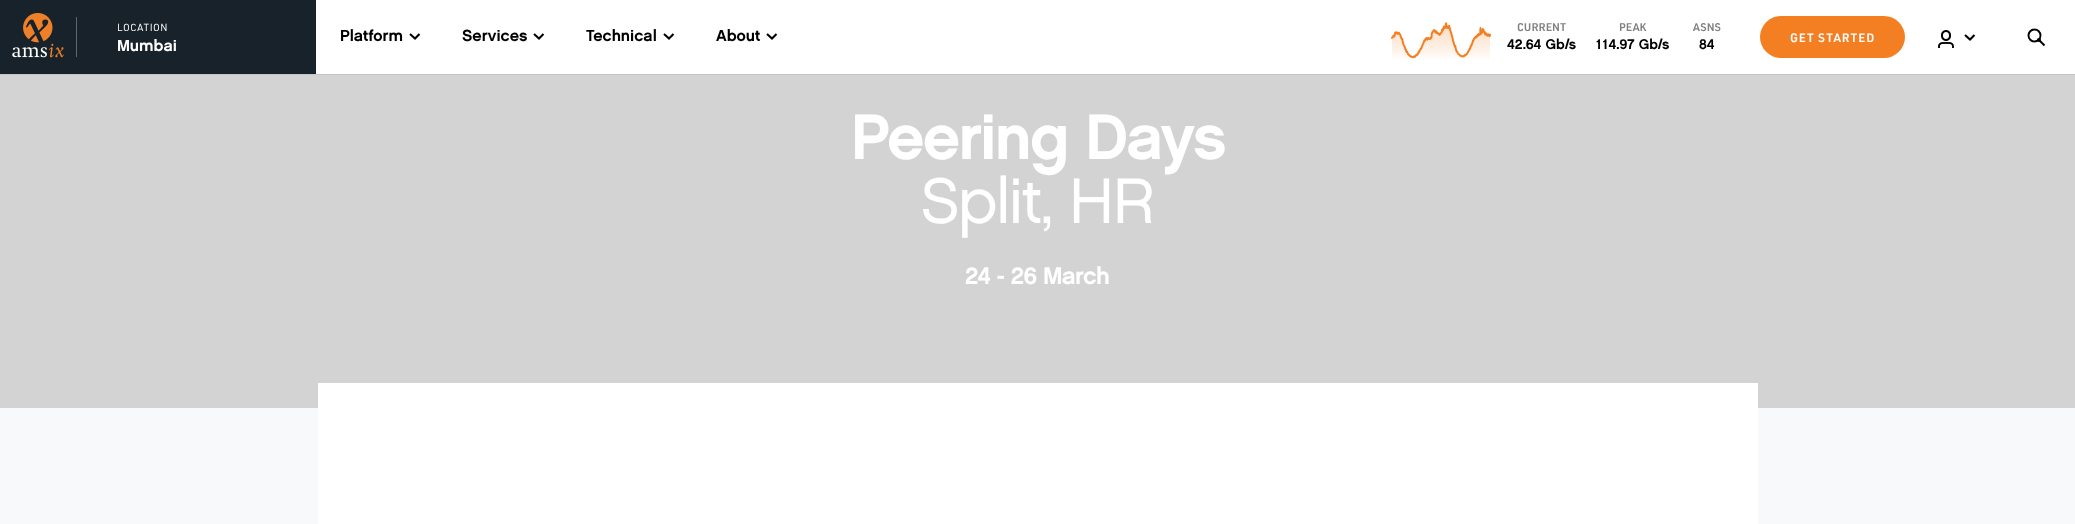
<svg xmlns="http://www.w3.org/2000/svg" width="2075" height="524" viewBox="0 0 2075 524">
  <rect width="100%" height="100%" fill="#f7f9fa"/>
  <path d="M-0.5 -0.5h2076v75H-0.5z" fill="none" stroke="#c4c5c5"/>
  <path d="M316 0h1759v74H316z" fill="#fff"/>
  <path d="M0 0h316v74H0z" fill="#17222a"/>
  <image x="12" y="13" width="52" height="45" href="img/1.png"/>
  <path d="M76 17h1v40H76z" fill="#566778"/>
  <path d="M410 34L415 38.5L419.5 34" fill="none" stroke="#000" stroke-width="2.1"/>
  <path d="M534 34L539 38.5L543.5 34" fill="none" stroke="#000" stroke-width="2.1"/>
  <path d="M664 34L669 38.5L673.5 34" fill="none" stroke="#000" stroke-width="2.1"/>
  <path d="M767 34L772 38.5L776.5 34" fill="none" stroke="#000" stroke-width="2.1"/>
  <image x="1391" y="22" width="100" height="37" href="img/2.png"/>
  <rect x="1760" y="16" width="145" height="42" rx="21" fill="#f47f22"/>
  <image x="1938" y="30" width="16" height="18" href="img/3.png"/>
  <path d="M1965 35L1970 39.5L1974.5 35" fill="none" stroke="#000" stroke-width="2.1"/>
  <circle cx="2034.5" cy="35.5" r="6" fill="none" stroke="#000" stroke-width="1.9"/>
  <circle cx="2039" cy="40" r="2" fill="#000"/>
  <path d="M2039 40L2044.5 45.5" fill="none" stroke="#000" stroke-width="1.9"/>
  <path d="M0 75h2075v333H0z" fill="#d3d3d3"/>
  <path d="M318 383h1440v25H318z" fill="#fff"/>
  <path d="M318 408h1440v116H318z" fill="#fff"/>
  <text x="117" y="31" font-family="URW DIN" font-size="10" letter-spacing="0.5" fill="#fff">LOCATION</text>
  <text x="117" y="51" font-family="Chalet" font-size="16" font-weight="bold" fill="#fff">Mumbai</text>
  <g font-family="Chalet" font-size="16" font-weight="bold" fill="#000">
    <text x="340" y="41">Platform</text>
    <text x="462" y="41">Services</text>
    <text x="586" y="41">Technical</text>
    <text x="716" y="41">About</text>
  </g>
  <text x="1517" y="31" font-family="URW DIN" font-size="11" font-weight="600" fill="#808080">CURRENT</text>
  <text x="1507" y="49" font-family="Chalet" font-size="14" font-weight="bold" fill="#000">42.64 Gb/s</text>
  <text x="1619" y="31" font-family="URW DIN" font-size="11" font-weight="600" fill="#808080">PEAK</text>
  <text x="1596" y="49" font-family="Chalet" font-size="14" font-weight="bold" fill="#000">114.97 Gb/s</text>
  <text x="1693" y="31" font-family="URW DIN" font-size="11" font-weight="600" fill="#808080">ASNS</text>
  <text x="1699" y="49" font-family="Chalet" font-size="14" font-weight="bold" fill="#000">84</text>
  <text x="1790" y="42" font-family="URW DIN" font-size="12" font-weight="600" letter-spacing="0.9" fill="#fff">GET STARTED</text>
  <text x="851" y="159" font-family="Chalet" font-size="64" font-weight="bold" letter-spacing="-1.75" fill="#fff">Peering Days</text>
  <text x="921" y="223" font-family="Chalet" font-size="64" font-weight="500" letter-spacing="-1.75" fill="#fff">Split, HR</text>
  <text x="965" y="284" font-family="Chalet" font-size="24" font-weight="bold" letter-spacing="-0.7" fill="#fff">24 - 26 March</text>
</svg>
